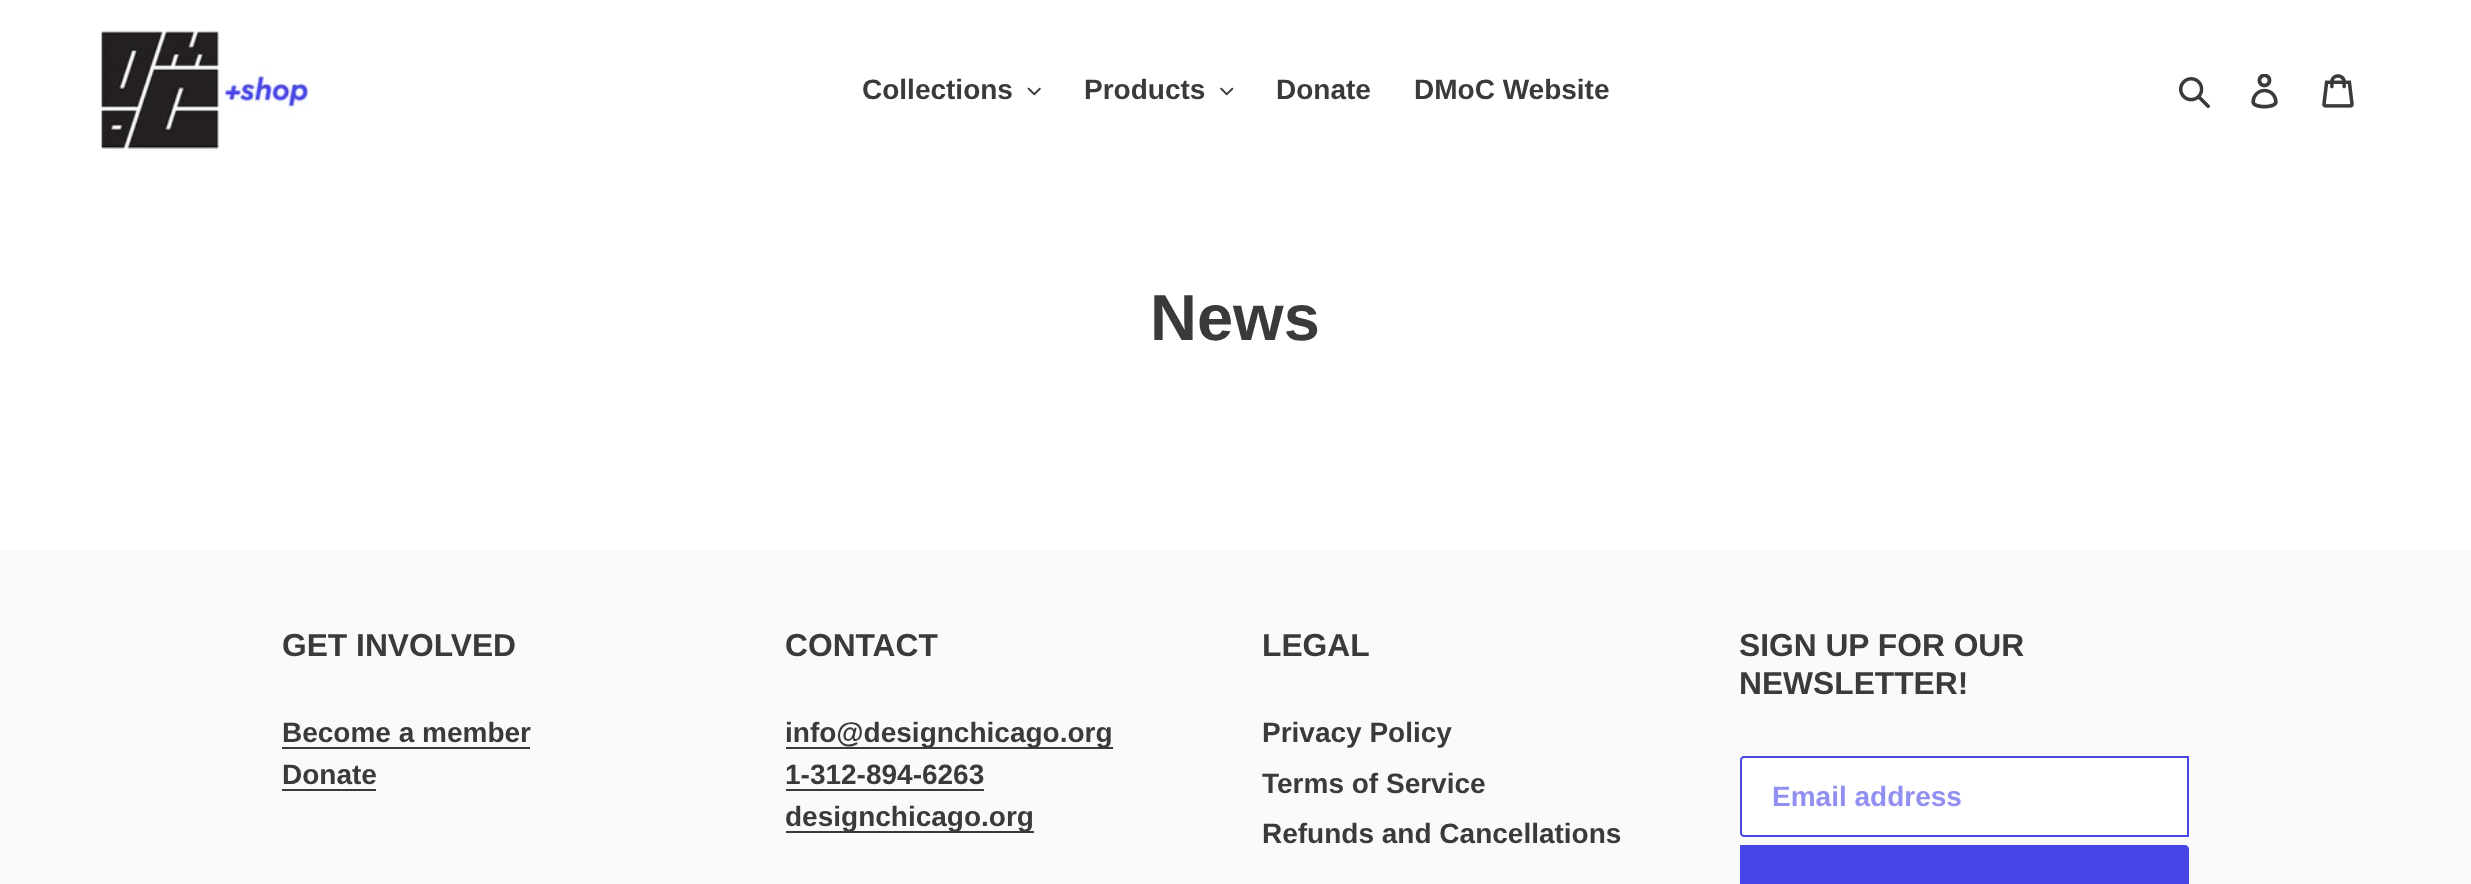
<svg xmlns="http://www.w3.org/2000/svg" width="2471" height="884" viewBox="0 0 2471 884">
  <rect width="100%" height="100%" fill="#fff"/>
  <image x="100" y="31" width="209" height="120" href="img/1.png"/>
  <image x="1027" y="87" width="14" height="9" href="img/2.png"/>
  <image x="1220" y="87" width="14" height="9" href="img/3.png"/>
  <image x="2179" y="77" width="31" height="31" href="img/4.png"/>
  <image x="2251" y="74" width="27" height="35" href="img/5.png"/>
  <image x="2322" y="74" width="32" height="34" href="img/6.png"/>
  <path d="M0 550h2471v334H0z" fill="#fafafa"/>
  <path d="M282 747h248v2H282z" fill="#3a3a3a"/>
  <path d="M282 789h94v2H282z" fill="#3a3a3a"/>
  <path d="M786 747h327v2H786z" fill="#3a3a3a"/>
  <path d="M786 789h198v2H786z" fill="#3a3a3a"/>
  <path d="M786 831h248v2H786z" fill="#3a3a3a"/>
  <path d="M1744 757H2188V836H1744C1742.5 836 1741 834.5 1741 833V760C1741 758.5 1742.5 757 1744 757Z" fill="#fff" stroke="#4845e7" stroke-width="2"/>
  <path d="M1740 845H2185C2187 845 2189 847 2189 849V884C2189 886 2187 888 2185 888H1740Z" fill="#4845e7"/>
  <g font-family="Liberation Sans" font-size="28" font-weight="bold" fill="#3a3a3a">
    <text x="862" y="99">Collections</text>
    <text x="1084" y="99">Products</text>
    <text x="1276" y="99">Donate</text>
    <text x="1414" y="99">DMoC Website</text>
  </g>
  <text x="1150" y="340" font-family="Liberation Sans" font-size="65" font-weight="bold" fill="#3a3a3a">News</text>
  <text x="282" y="656" font-family="Liberation Sans" font-size="31.75" font-weight="bold" fill="#3a3a3a">GET INVOLVED</text>
  <g font-family="Liberation Sans" font-size="28" font-weight="bold" fill="#3a3a3a">
    <text x="282" y="742">Become a member</text>
    <text x="282" y="784">Donate</text>
  </g>
  <text x="785" y="656" font-family="Liberation Sans" font-size="31.75" font-weight="bold" fill="#3a3a3a">CONTACT</text>
  <g font-family="Liberation Sans" font-size="28" font-weight="bold" fill="#3a3a3a">
    <text x="785" y="742">info@designchicago.org</text>
    <text x="785" y="784">1-312-894-6263</text>
    <text x="785" y="826">designchicago.org</text>
  </g>
  <text x="1262" y="656" font-family="Liberation Sans" font-size="31.75" font-weight="bold" fill="#3a3a3a">LEGAL</text>
  <g font-family="Liberation Sans" font-size="28" font-weight="bold" fill="#3a3a3a">
    <text x="1262" y="742">Privacy Policy</text>
    <text x="1262" y="793">Terms of Service</text>
    <text x="1262" y="843">Refunds and Cancellations</text>
  </g>
  <g font-family="Liberation Sans" font-size="31.75" font-weight="bold" fill="#3a3a3a">
    <text x="1739" y="656">SIGN UP FOR OUR</text>
    <text x="1739" y="694">NEWSLETTER!</text>
  </g>
  <text x="1772" y="806" font-family="Liberation Sans" font-size="28" font-weight="bold" fill="#918ff1">Email address</text>
</svg>
